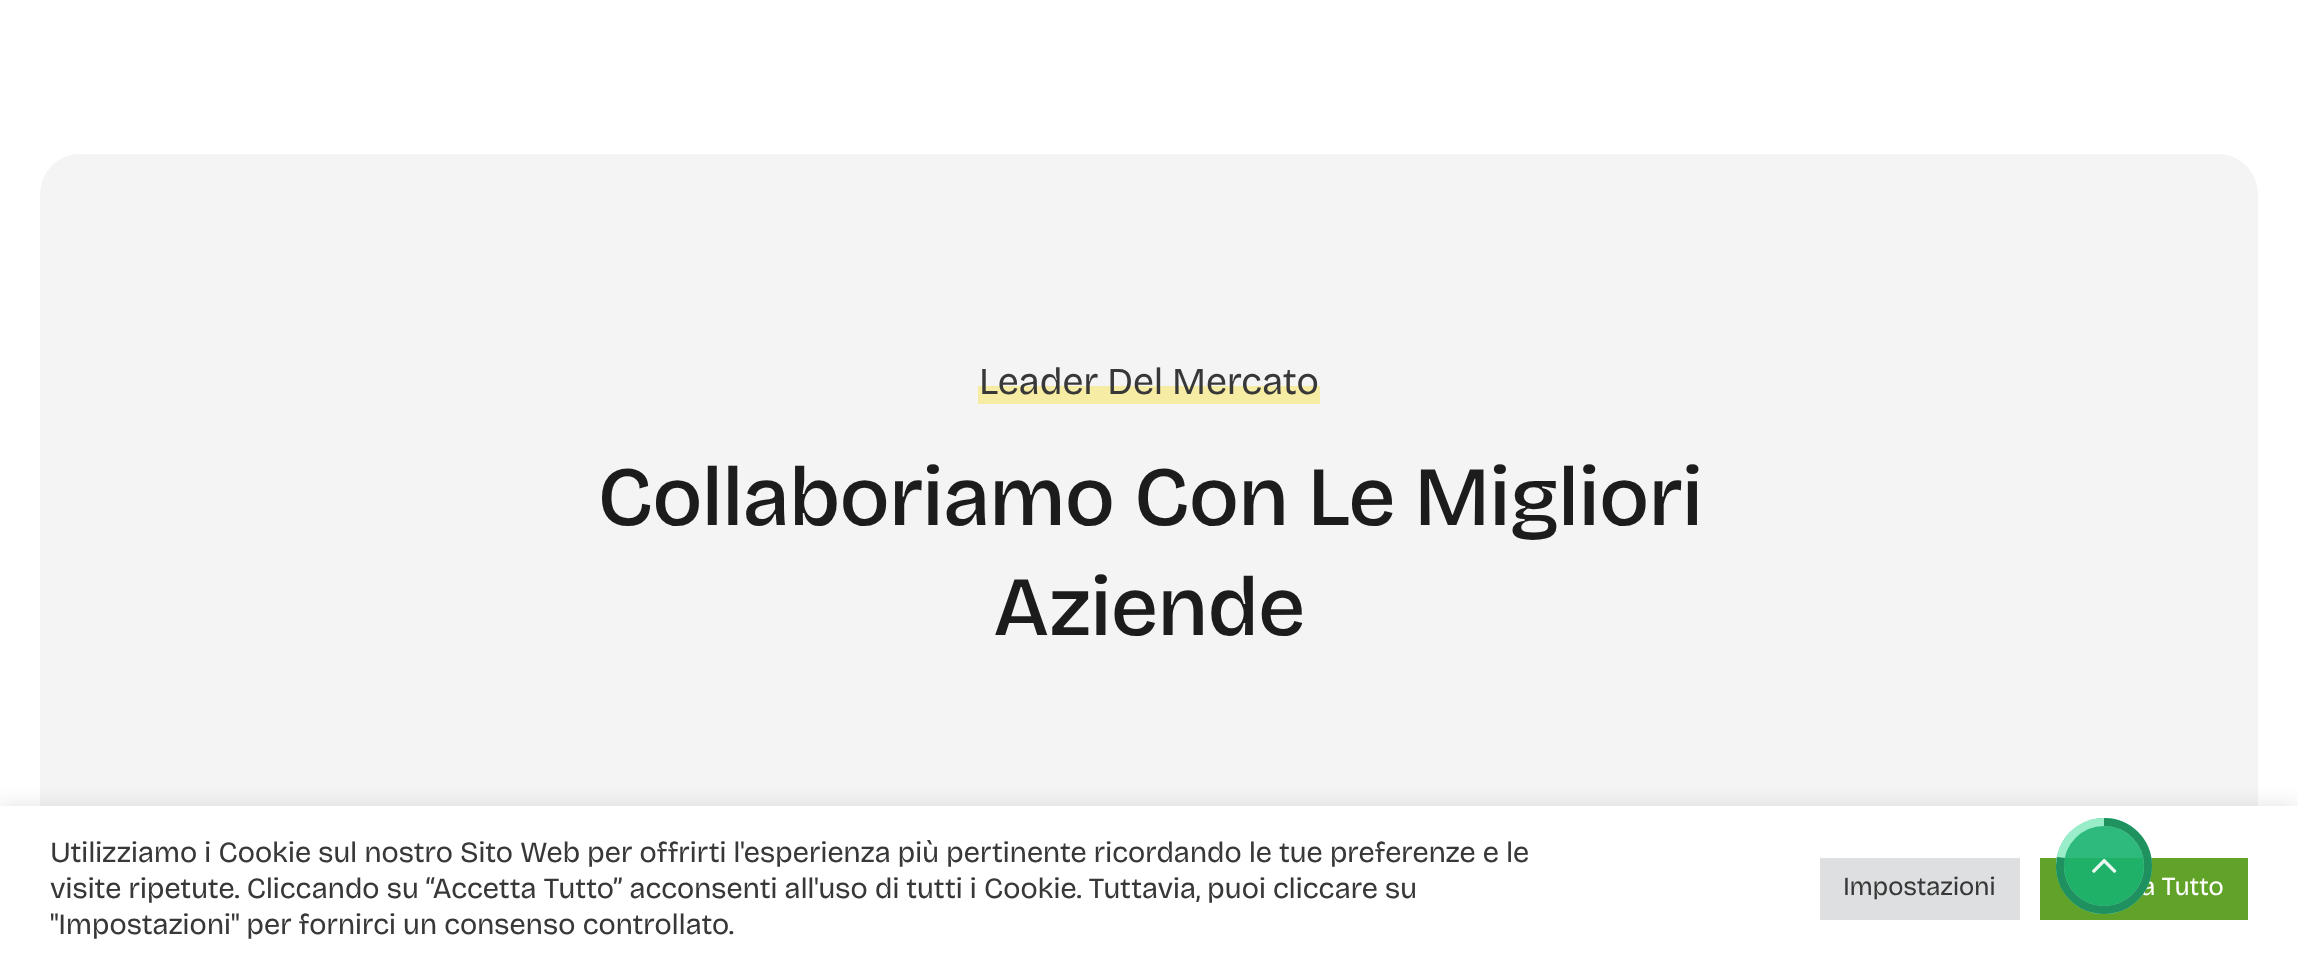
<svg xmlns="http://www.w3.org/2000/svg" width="2298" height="969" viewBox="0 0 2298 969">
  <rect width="100%" height="100%" fill="#fff"/>
  <rect x="20" y="134" width="2258" height="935" rx="60" fill="#f4f4f4" stroke="#fff" stroke-width="40"/>
  <path d="M978 386h342v18H978z" fill="#f7eca4"/>
  <path d="M0 804h2298v164H0z" fill="#acabab4d" filter="blur(10px)"/>
  <path d="M0 806h2298v163H0z" fill="#fff"/>
  <path d="M1820 858h200v62H1820z" fill="#dedfe0"/>
  <path d="M2040 858h208v62H2040z" fill="#61a229"/>
  <text x="979" y="394" font-family="Bricolage Grotesque" font-size="38" letter-spacing="-0.4" fill="#383838">Leader Del Mercato</text>
  <g font-family="Bricolage Grotesque" font-size="84" font-weight="500" letter-spacing="-1.25" fill="#1c1c1c">
    <text x="597" y="525">Collaboriamo Con Le Migliori</text>
    <text x="993" y="635">Aziende</text>
  </g>
  <g font-family="Bricolage Grotesque" font-size="29.33" letter-spacing="-0.34" fill="#383838">
    <text x="50" y="862">Utilizziamo i Cookie sul nostro Sito Web per offrirti l'esperienza più pertinente ricordando le tue preferenze e le</text>
    <text x="50" y="898">visite ripetute. Cliccando su “Accetta Tutto” acconsenti all'uso di tutti i Cookie. Tuttavia, puoi cliccare su</text>
    <text x="50" y="934">"Impostazioni" per fornirci un consenso controllato.</text>
  </g>
  <text x="1843" y="895" font-family="Bricolage Grotesque" font-size="26" letter-spacing="-0.34" fill="#383838">Impostazioni</text>
  <text x="2141" y="895" font-family="Bricolage Grotesque" font-size="26" letter-spacing="-0.34" fill="#fff">a Tutto</text>
  <circle cx="2104" cy="866" r="48" fill="#18b26fe6"/>
  <circle cx="2104" cy="866" r="44" fill="none" stroke="#a5f3d1e6" stroke-width="8"/>
  <path d="M2104 822C2128.5 822 2148 841.5 2148 866C2148 890.5 2128.5 910 2104 910C2079.5 910 2060 890.5 2060 866L2061 857.5" fill="none" stroke="#128754e6" stroke-width="8"/>
  <image x="2092" y="858" width="25" height="15" href="img/1.png"/>
</svg>
